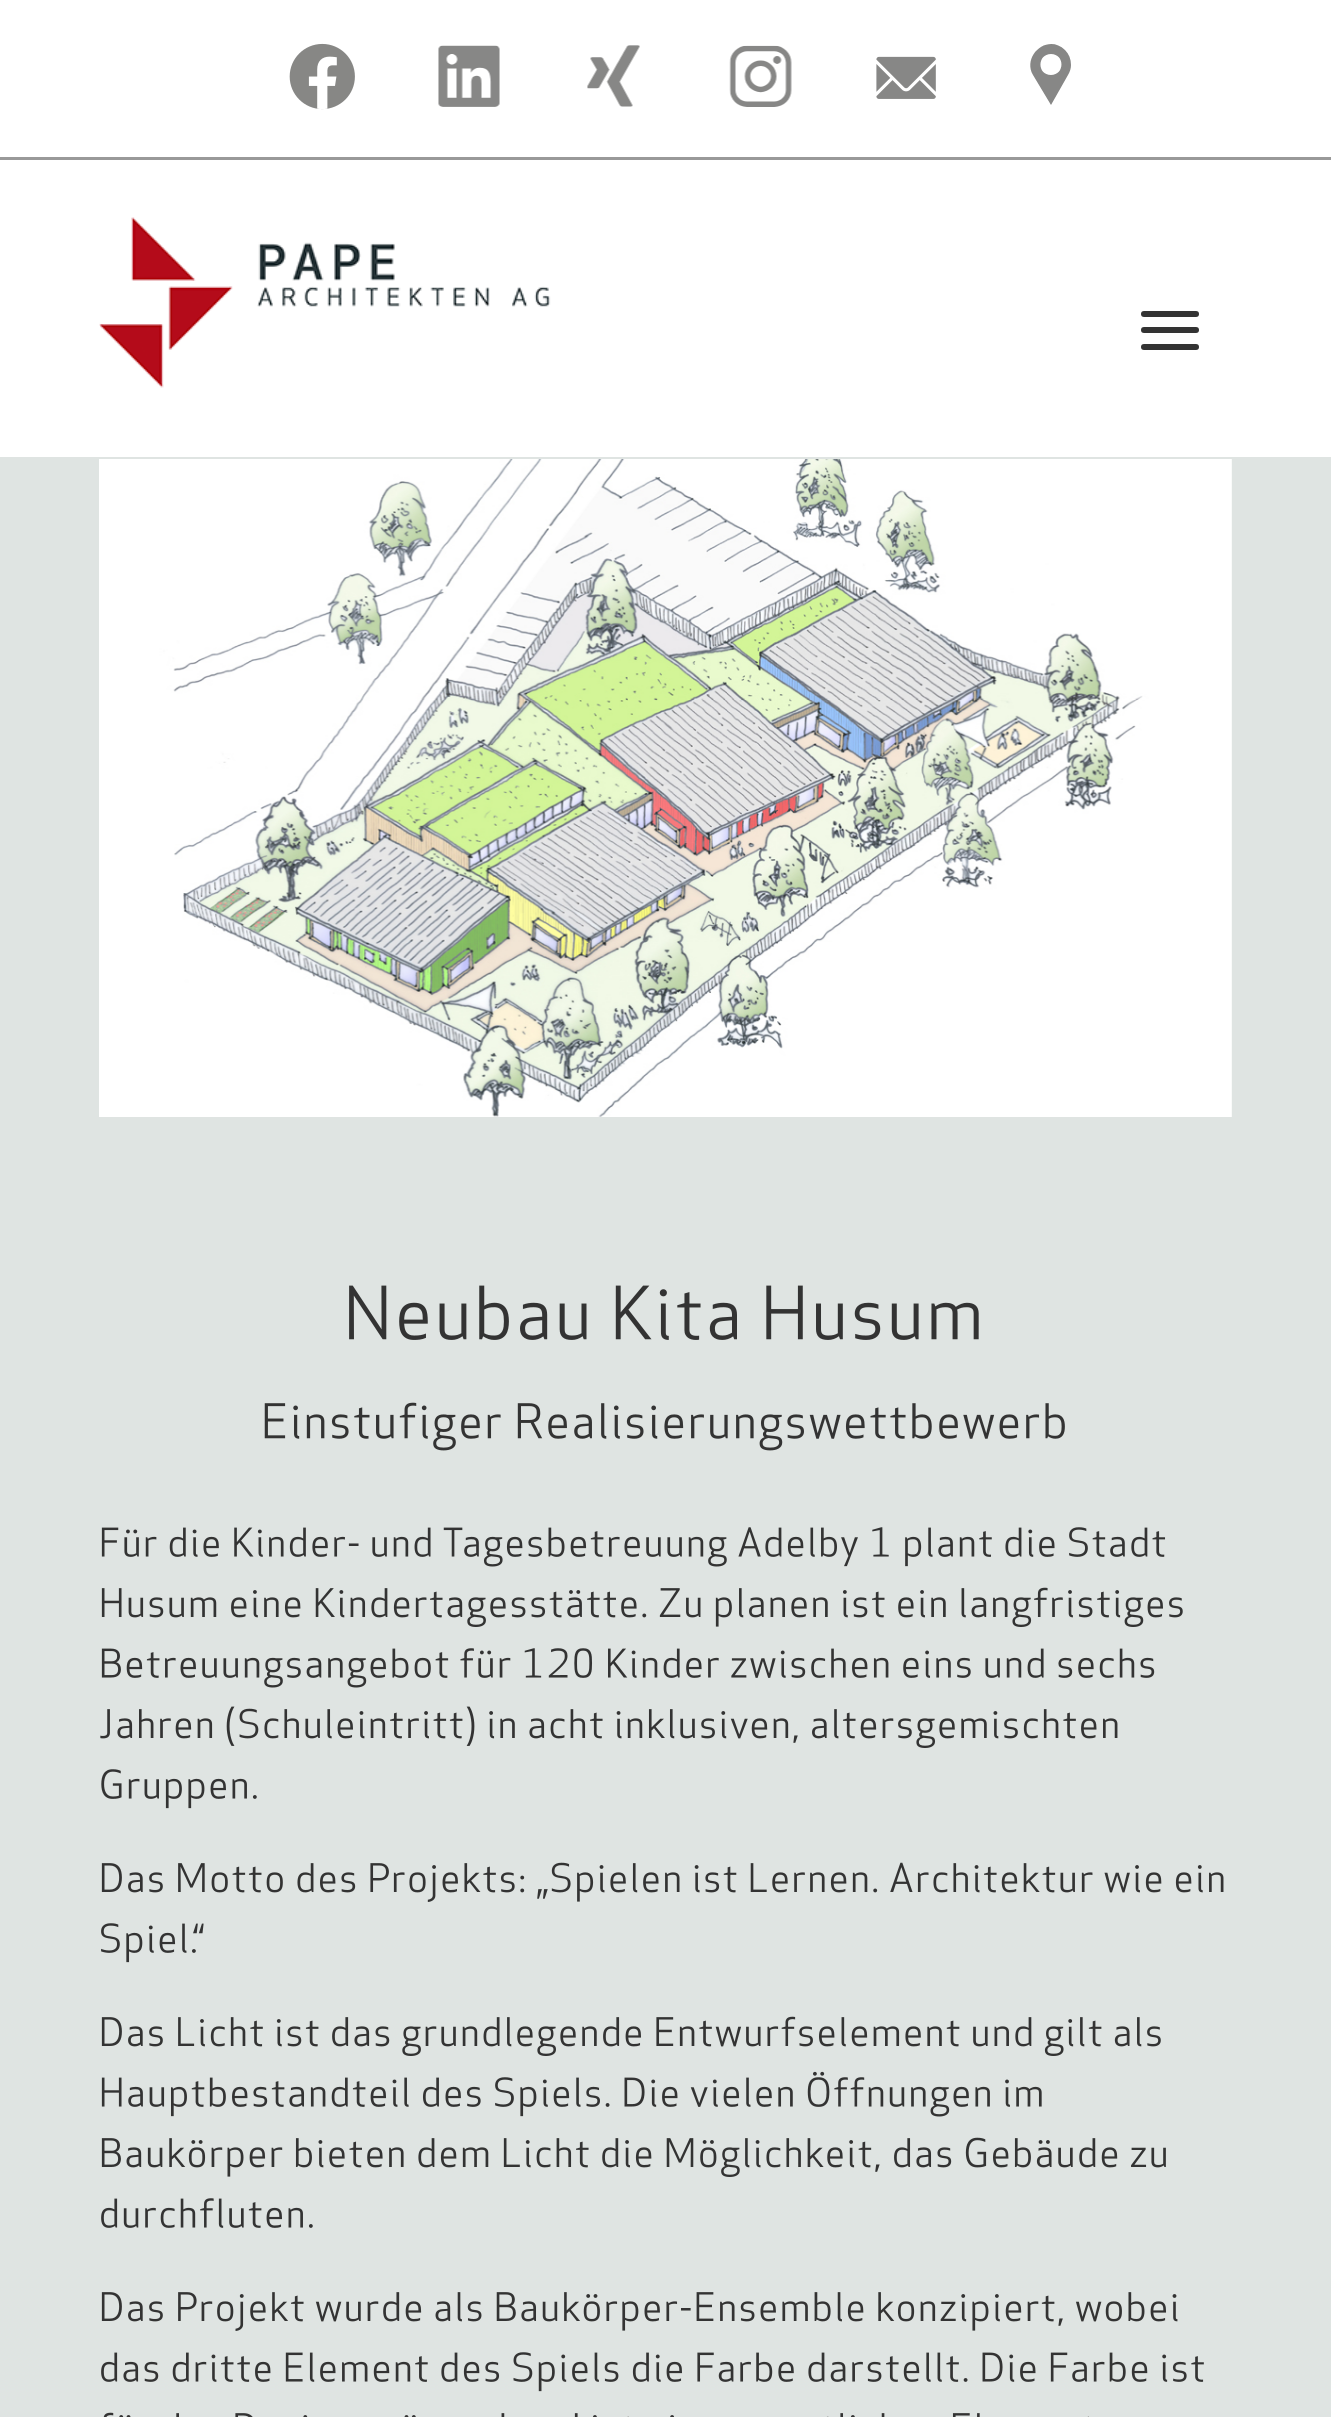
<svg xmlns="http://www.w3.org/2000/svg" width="1331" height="2417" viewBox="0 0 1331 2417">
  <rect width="100%" height="100%" fill="#fff"/>
  <path d="M0 157h1331v3H0z" fill="#999"/>
  <image x="289" y="43" width="66" height="67" href="img/1.png"/>
  <image x="438" y="45" width="62" height="62" href="img/2.png"/>
  <image x="587" y="45" width="53" height="62" href="img/3.png"/>
  <image x="729" y="45" width="63" height="62" href="img/4.png"/>
  <image x="876" y="56" width="60" height="43" href="img/5.png"/>
  <path d="M1051 75C1037 75 1037 54 1051 54C1065 54 1065 75 1051 75ZM1071 65C1071 59 1069 54 1065 50C1048 33 1022 55 1033 75L1051 105L1068 75C1070 72 1071 68 1071 65Z" fill="#878786"/>
  <image x="99" y="217" width="452" height="171" href="img/6.png"/>
  <rect x="1141" y="327" width="58" height="6" rx="3" fill="#333"/>
  <rect x="1141" y="311" width="58" height="6" rx="3" fill="#333"/>
  <rect x="1141" y="344" width="58" height="6" rx="3" fill="#333"/>
  <path d="M0 457h1331v1960H0z" fill="#dfe4e2"/>
  <image x="99" y="459" width="1133" height="658" href="img/7.png"/>
  <image x="349" y="1285" width="630" height="55" href="img/8.png"/>
  <image x="264" y="1402" width="801" height="49" href="img/9.png"/>
  <image x="101" y="1527" width="1065" height="40" href="img/10.png"/>
  <image x="101" y="1587" width="1082" height="40" href="img/11.png"/>
  <image x="101" y="1648" width="1054" height="40" href="img/12.png"/>
  <image x="100" y="1706" width="1018" height="42" href="img/13.png"/>
  <image x="101" y="1769" width="156" height="40" href="img/14.png"/>
  <image x="101" y="1862" width="1123" height="40" href="img/15.png"/>
  <image x="101" y="1923" width="103" height="40" href="img/16.png"/>
  <image x="101" y="2016" width="1060" height="40" href="img/17.png"/>
  <image x="101" y="2071" width="941" height="46" href="img/18.png"/>
  <image x="101" y="2137" width="1065" height="40" href="img/19.png"/>
  <image x="101" y="2198" width="212" height="30" href="img/20.png"/>
  <image x="101" y="2292" width="1077" height="39" href="img/21.png"/>
  <image x="101" y="2352" width="1103" height="40" href="img/22.png"/>
  <image x="103" y="2412" width="986" height="5" href="img/23.png"/>
</svg>
